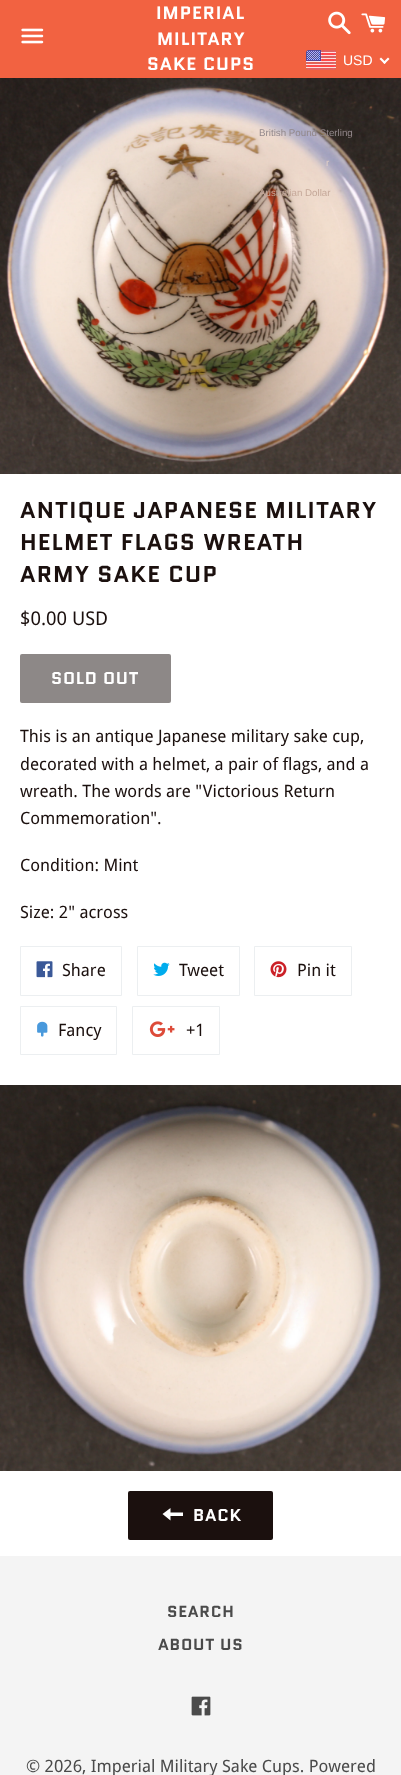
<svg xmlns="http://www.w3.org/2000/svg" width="401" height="1775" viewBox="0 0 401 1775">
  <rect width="100%" height="100%" fill="#fff"/>
  <path d="M0 0h401v78H0z" fill="#f26241"/>
  <image x="21" y="28" width="23" height="16" href="img/1.png"/>
  <image x="328" y="11" width="23" height="24" href="img/2.png"/>
  <image x="361" y="13" width="25" height="20" href="img/3.png"/>
  <image x="306" y="50" width="30" height="20" href="img/4.png"/>
  <path d="M388 57.5L389.5 59L384.5 64L383 62.5Z" fill="#fff"/>
  <path d="M381 57.5L386 62.5L384.5 64L379.5 59Z" fill="#fff"/>
  <image x="0" y="78" width="401" height="396" href="img/5.png"/>
  <rect x="20" y="654" width="151" height="49" rx="2" fill="#8d8887"/>
  <path d="M20.5 946.5h101v49H20.5z" fill="none" stroke="#eceff1"/>
  <image x="36" y="961" width="17" height="17" href="img/6.png"/>
  <path d="M137.5 946.5h102v49H137.5z" fill="none" stroke="#eceff1"/>
  <image x="153" y="962" width="17" height="14" href="img/7.png"/>
  <path d="M254.5 946.5h97v49H254.5z" fill="none" stroke="#eceff1"/>
  <image x="270" y="961" width="17" height="17" href="img/8.png"/>
  <path d="M20.5 1006.5h96v48H20.5z" fill="none" stroke="#eceff1"/>
  <image x="37" y="1021" width="11" height="16" href="img/9.png"/>
  <path d="M132.5 1006.5h87v48H132.5z" fill="none" stroke="#eceff1"/>
  <image x="149" y="1021" width="26" height="16" href="img/10.png"/>
  <image x="0" y="1085" width="401" height="386" href="img/11.png"/>
  <rect x="128" y="1491" width="145" height="49" rx="2" fill="#1b100e"/>
  <path d="M170.5 1512.5V1508L162.5 1514L170.5 1520.5V1516H183V1512.5Z" fill="#fff"/>
  <path d="M0 1556h401v219H0z" fill="#f4f4f4"/>
  <image x="191" y="1696" width="20" height="20" href="img/12.png"/>
  <g font-family="Quantico" font-size="18" font-weight="bold" letter-spacing="1" fill="#fff">
    <text x="156" y="19">IMPERIAL</text>
    <text x="157" y="45">MILITARY</text>
    <text x="147" y="70">SAKE CUPS</text>
  </g>
  <text x="343" y="65" font-family="Liberation Sans" font-size="14" fill="#fff">USD</text>
  <text x="259" y="136" font-family="Liberation Sans" font-size="9.75" fill="#92888b">British Pound Sterling</text>
  <text x="326" y="166" font-family="Liberation Sans" font-size="9.75" fill="#e1cfc7">r</text>
  <text x="259" y="196" font-family="Liberation Sans" font-size="9.75" fill="#c5a899">Australian Dollar</text>
  <g font-family="Quantico" font-size="23" font-weight="bold" letter-spacing="1.15" fill="#1b100e">
    <text x="20" y="518">ANTIQUE JAPANESE MILITARY</text>
    <text x="20" y="550">HELMET FLAGS WREATH</text>
    <text x="20" y="582">ARMY SAKE CUP</text>
  </g>
  <text x="20" y="625" font-family="Droid Sans" font-size="19" fill="#1b100e">$0.00 USD</text>
  <text x="51" y="684" font-family="Quantico" font-size="17" font-weight="bold" letter-spacing="0.75" fill="#fff">SOLD OUT</text>
  <g font-family="Droid Sans" font-size="17" fill="#1b100e">
    <text x="20" y="742">This is an antique Japanese military sake cup,</text>
    <text x="20" y="770">decorated with a helmet, a pair of flags, and a</text>
    <text x="20" y="797">wreath. The words are "Victorious Return</text>
    <text x="20" y="824">Commemoration".</text>
    <text x="20" y="871">Condition: Mint</text>
    <text x="20" y="918">Size: 2" across</text>
    <text x="62" y="976">Share</text>
    <text x="179" y="976">Tweet</text>
    <text x="297" y="976">Pin it</text>
    <text x="58" y="1036">Fancy</text>
    <text x="186" y="1036">+1</text>
  </g>
  <text x="193" y="1521" font-family="Quantico" font-size="17" font-weight="bold" letter-spacing="0.75" fill="#fff">BACK</text>
  <g font-family="Quantico" font-size="16" font-weight="bold" letter-spacing="0.75" fill="#4a4a4a">
    <text x="167" y="1617">SEARCH</text>
    <text x="158" y="1650">ABOUT US</text>
  </g>
  <text x="26" y="1772" font-family="Droid Sans" font-size="17" fill="#4a4a4a">© 2026, Imperial Military Sake Cups. Powered</text>
</svg>
